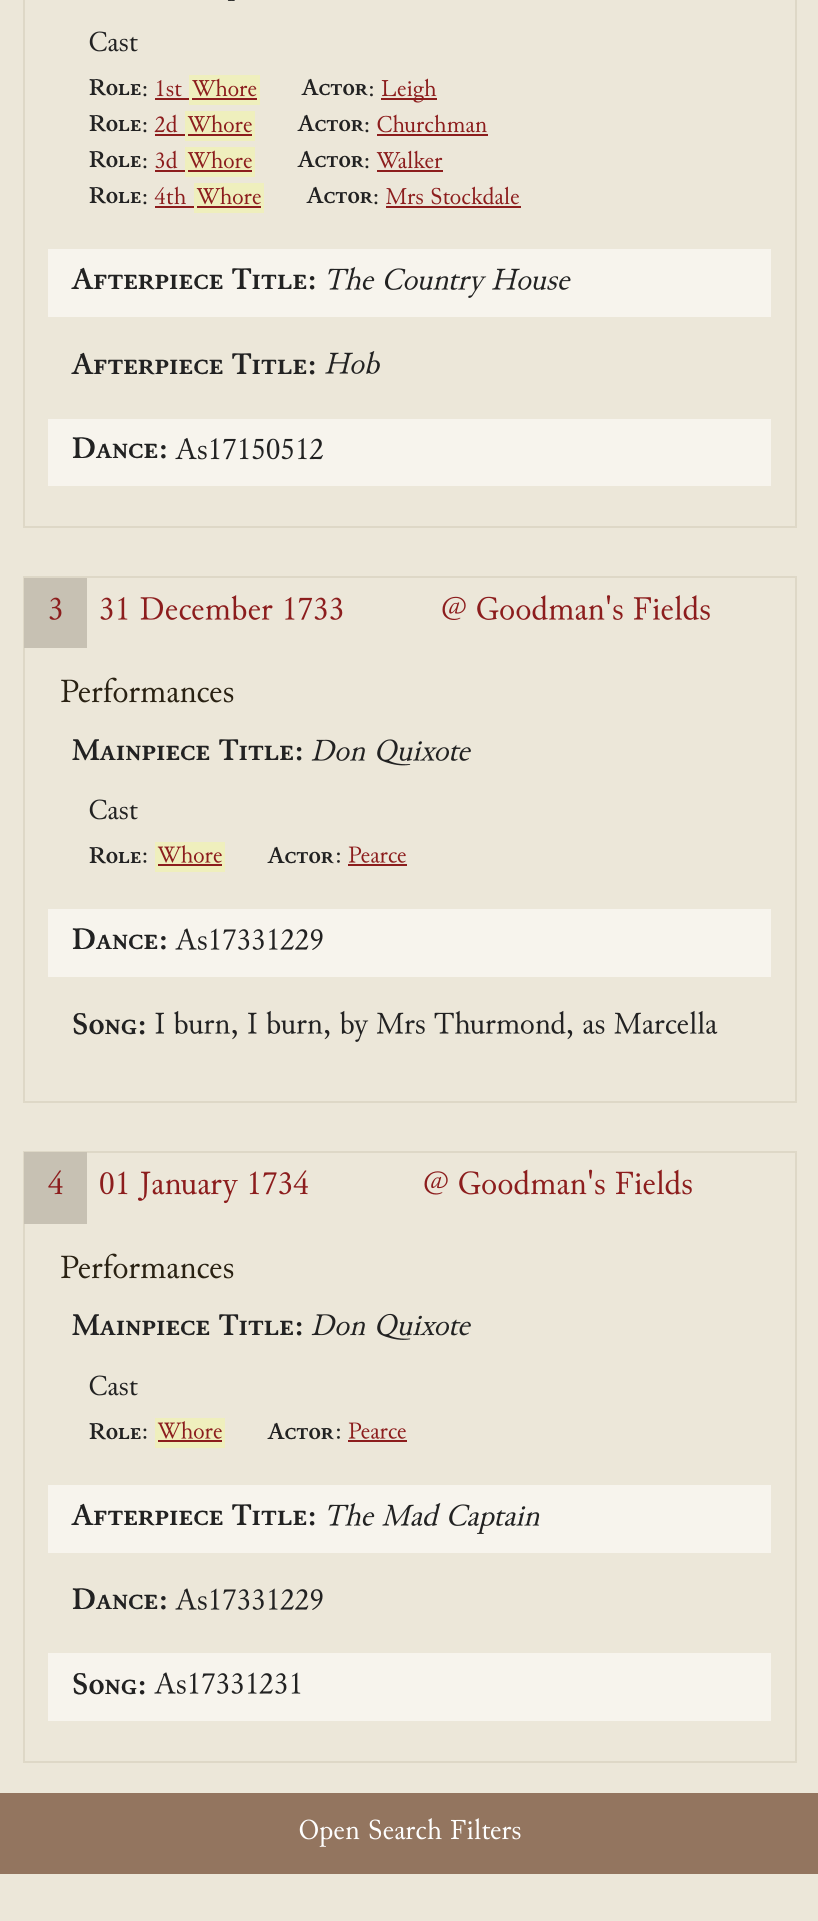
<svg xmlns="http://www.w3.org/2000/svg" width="818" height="1921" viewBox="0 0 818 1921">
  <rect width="100%" height="100%" fill="#ece7d9"/>
  <path d="M24 -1h772v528H24z" fill="none" stroke="#ded8c7" stroke-width="2"/>
  <image x="227" y="0" width="8" height="1" href="img/1.png"/>
  <image x="89" y="31" width="49" height="21" href="img/2.png"/>
  <path d="M155 98h34v2H155z" fill="#8c1d1d"/>
  <path d="M189 75h71v30H189z" fill="#efefbd"/>
  <path d="M192 98h65v2H192z" fill="#8c1d1d"/>
  <image x="143" y="86" width="4" height="11" href="img/3.png"/>
  <image x="157" y="80" width="25" height="17" href="img/4.png"/>
  <image x="192" y="78" width="65" height="19" href="img/5.png"/>
  <path d="M381 98h56v2H381z" fill="#8c1d1d"/>
  <image x="370" y="86" width="3" height="11" href="img/6.png"/>
  <image x="381" y="78" width="56" height="25" href="img/7.png"/>
  <path d="M155 134h30v2H155z" fill="#8c1d1d"/>
  <path d="M185 111h70v30H185z" fill="#efefbd"/>
  <path d="M188 134h64v2H188z" fill="#8c1d1d"/>
  <image x="143" y="122" width="4" height="11" href="img/3.png"/>
  <image x="154" y="114" width="24" height="19" href="img/8.png"/>
  <image x="187" y="114" width="65" height="19" href="img/9.png"/>
  <path d="M377 134h111v2H377z" fill="#8c1d1d"/>
  <image x="365" y="122" width="4" height="11" href="img/3.png"/>
  <image x="377" y="114" width="110" height="19" href="img/10.png"/>
  <path d="M155 170h30v2H155z" fill="#8c1d1d"/>
  <path d="M185 147h70v30H185z" fill="#efefbd"/>
  <path d="M188 170h64v2H188z" fill="#8c1d1d"/>
  <image x="143" y="158" width="4" height="11" href="img/3.png"/>
  <image x="155" y="150" width="23" height="19" href="img/11.png"/>
  <image x="187" y="150" width="65" height="19" href="img/9.png"/>
  <path d="M377 170h66v2H377z" fill="#8c1d1d"/>
  <image x="365" y="158" width="4" height="11" href="img/3.png"/>
  <image x="376" y="150" width="67" height="19" href="img/12.png"/>
  <path d="M155 206h39v2H155z" fill="#8c1d1d"/>
  <path d="M194 183h70v30H194z" fill="#efefbd"/>
  <path d="M197 206h64v2H197z" fill="#8c1d1d"/>
  <image x="143" y="194" width="4" height="11" href="img/3.png"/>
  <image x="154" y="186" width="32" height="19" href="img/13.png"/>
  <image x="196" y="186" width="65" height="19" href="img/9.png"/>
  <path d="M386 206h135v2H386z" fill="#8c1d1d"/>
  <image x="374" y="194" width="4" height="11" href="img/3.png"/>
  <image x="386" y="186" width="133" height="19" href="img/14.png"/>
  <path d="M48 249h723v68H48z" fill="#f7f4ed"/>
  <image x="328" y="266" width="243" height="32" href="img/15.png"/>
  <image x="325" y="351" width="55" height="23" href="img/16.png"/>
  <path d="M48 419h723v67H48z" fill="#f7f4ed"/>
  <image x="175" y="437" width="148" height="23" href="img/17.png"/>
  <path d="M24 577h772v525H24z" fill="none" stroke="#ded8c7" stroke-width="2"/>
  <path d="M24 578h63v70H24z" fill="#c7c1b3"/>
  <image x="49" y="597" width="13" height="23" href="img/18.png"/>
  <image x="100" y="595" width="243" height="25" href="img/19.png"/>
  <image x="442" y="595" width="268" height="25" href="img/20.png"/>
  <image x="61" y="677" width="173" height="26" href="img/21.png"/>
  <image x="311" y="739" width="160" height="27" href="img/22.png"/>
  <image x="89" y="799" width="49" height="21" href="img/2.png"/>
  <path d="M155 842h70v30H155z" fill="#efefbd"/>
  <path d="M158 864h64v2H158z" fill="#8c1d1d"/>
  <image x="143" y="852" width="4" height="11" href="img/23.png"/>
  <image x="157" y="845" width="65" height="18" href="img/24.png"/>
  <path d="M348 864h59v2H348z" fill="#8c1d1d"/>
  <image x="337" y="852" width="3" height="11" href="img/25.png"/>
  <image x="348" y="846" width="58" height="17" href="img/26.png"/>
  <path d="M48 909h723v68H48z" fill="#f7f4ed"/>
  <image x="175" y="928" width="148" height="22" href="img/27.png"/>
  <image x="155" y="1010" width="563" height="32" href="img/28.png"/>
  <path d="M24 1152h772v610H24z" fill="none" stroke="#ded8c7" stroke-width="2"/>
  <path d="M24 1152h63v72H24z" fill="#c7c1b3"/>
  <image x="48" y="1170" width="15" height="25" href="img/29.png"/>
  <image x="100" y="1170" width="208" height="34" href="img/30.png"/>
  <image x="424" y="1169" width="268" height="26" href="img/31.png"/>
  <image x="61" y="1253" width="173" height="26" href="img/21.png"/>
  <image x="311" y="1313" width="160" height="27" href="img/32.png"/>
  <image x="89" y="1375" width="49" height="21" href="img/2.png"/>
  <path d="M155 1418h70v30H155z" fill="#efefbd"/>
  <path d="M158 1440h64v2H158z" fill="#8c1d1d"/>
  <image x="143" y="1428" width="4" height="11" href="img/23.png"/>
  <image x="157" y="1421" width="65" height="18" href="img/24.png"/>
  <path d="M348 1440h59v2H348z" fill="#8c1d1d"/>
  <image x="337" y="1428" width="3" height="11" href="img/25.png"/>
  <image x="348" y="1422" width="58" height="17" href="img/26.png"/>
  <path d="M48 1485h723v68H48z" fill="#f7f4ed"/>
  <image x="328" y="1502" width="212" height="32" href="img/33.png"/>
  <image x="175" y="1588" width="148" height="22" href="img/34.png"/>
  <path d="M48 1653h723v68H48z" fill="#f7f4ed"/>
  <image x="154" y="1672" width="147" height="22" href="img/35.png"/>
  <path d="M0 1793h818v81H0z" fill="#93755f"/>
  <image x="299" y="1818" width="222" height="29" href="img/36.png"/>
  <g font-family="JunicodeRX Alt" font-size="24" font-weight="bold" fill="#222">
    <text x="89" y="95">Role</text>
    <text x="302" y="95">Actor</text>
    <text x="89" y="131">Role</text>
    <text x="298" y="131">Actor</text>
    <text x="89" y="167">Role</text>
    <text x="298" y="167">Actor</text>
    <text x="89" y="203">Role</text>
    <text x="307" y="203">Actor</text>
  </g>
  <g font-family="JunicodeRX Alt" font-size="31.25" font-weight="bold" fill="#222">
    <text x="72" y="289">Afterpiece Title:</text>
    <text x="72" y="374">Afterpiece Title:</text>
    <text x="72" y="458">Dance:</text>
    <text x="72" y="760">Mainpiece Title:</text>
  </g>
  <g font-family="JunicodeRX Alt" font-size="24" font-weight="bold" fill="#222">
    <text x="89" y="863">Role</text>
    <text x="268" y="863">Actor</text>
  </g>
  <g font-family="JunicodeRX Alt" font-size="31.25" font-weight="bold" fill="#222">
    <text x="72" y="949">Dance:</text>
    <text x="72" y="1034">Song:</text>
    <text x="72" y="1335">Mainpiece Title:</text>
  </g>
  <g font-family="JunicodeRX Alt" font-size="24" font-weight="bold" fill="#222">
    <text x="89" y="1439">Role</text>
    <text x="268" y="1439">Actor</text>
  </g>
  <g font-family="JunicodeRX Alt" font-size="31.25" font-weight="bold" fill="#222">
    <text x="72" y="1525">Afterpiece Title:</text>
    <text x="72" y="1609">Dance:</text>
    <text x="72" y="1694">Song:</text>
  </g>
</svg>
